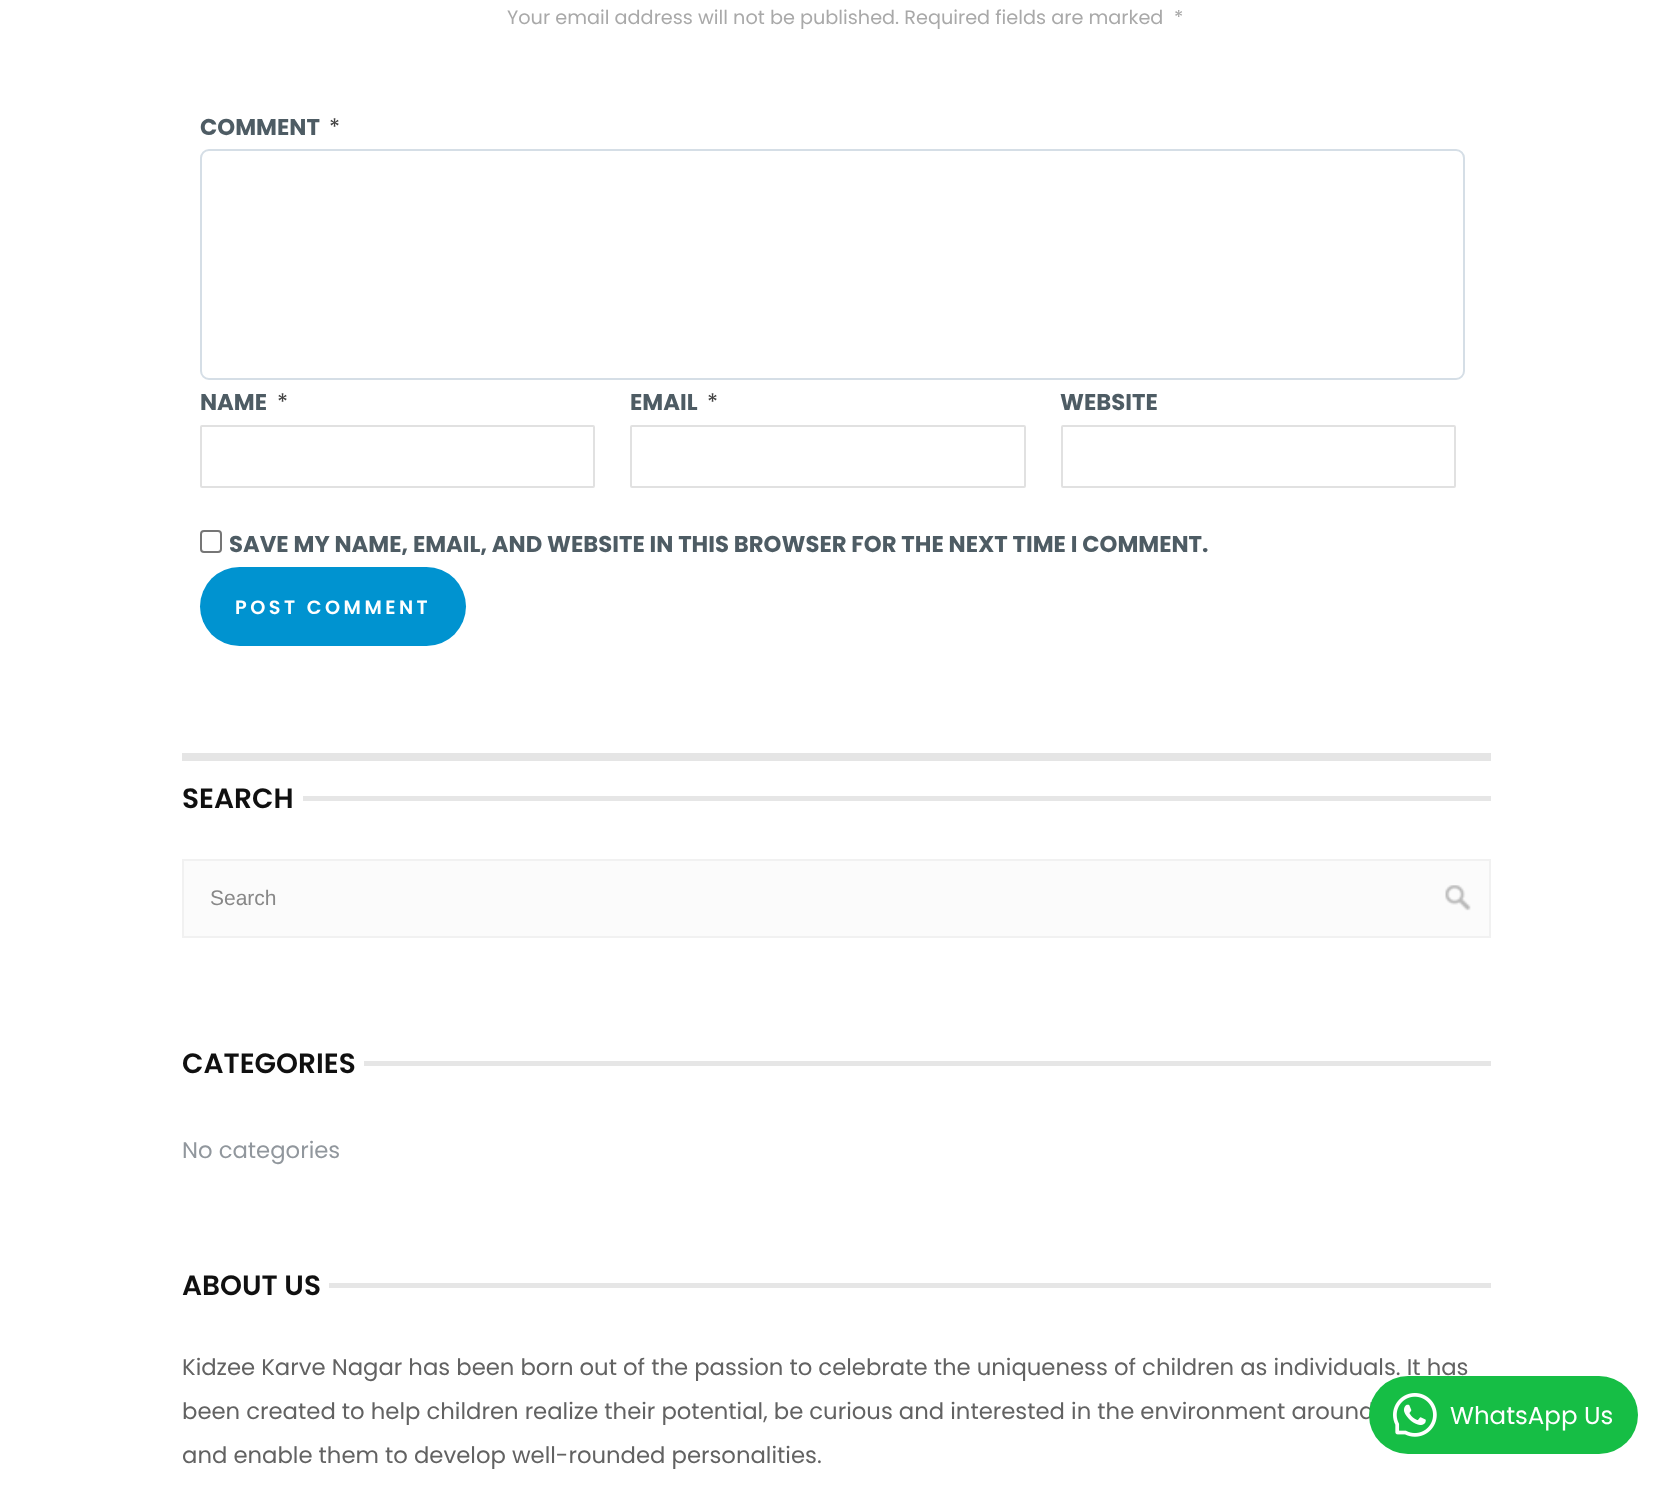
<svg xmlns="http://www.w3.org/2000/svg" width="1672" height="1488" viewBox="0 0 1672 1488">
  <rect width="100%" height="100%" fill="#fff"/>
  <rect x="201" y="150" width="1263" height="229" rx="8" fill="none" stroke="#d5dee6" stroke-width="2"/>
  <rect x="201" y="426" width="393" height="61" rx="1" fill="none" stroke="#e1e1e1" stroke-width="2"/>
  <rect x="631" y="426" width="394" height="61" rx="1" fill="none" stroke="#e1e1e1" stroke-width="2"/>
  <rect x="1062" y="426" width="393" height="61" rx="1" fill="none" stroke="#e1e1e1" stroke-width="2"/>
  <rect x="201" y="531" width="20" height="21" rx="3" fill="none" stroke="#767676" stroke-width="2"/>
  <rect x="200" y="567" width="266" height="79" rx="39.5" fill="#0093d0"/>
  <path d="M182 753h1309v8H182z" fill="#e5e5e5"/>
  <path d="M303 796h1188v5H303z" fill="#e6e6e6"/>
  <path d="M184 861h1305v75H184z" fill="#fbfbfb"/>
  <image x="1445" y="885" width="26" height="26" href="img/1.png"/>
  <path d="M183 860h1307v77H183z" fill="none" stroke="#f1f1f1" stroke-width="2"/>
  <path d="M364 1061h1127v5H364z" fill="#e6e6e6"/>
  <path d="M329 1283h1162v5H329z" fill="#e6e6e6"/>
  <g font-family="Poppins" font-size="19.25" fill="#a9a9a9">
    <text x="507" y="24">Your email address will not be published. Required fields are marked</text>
    <text x="1174" y="24">*</text>
  </g>
  <text x="200" y="135" font-family="Poppins" font-size="22.75" font-weight="bold" fill="#4e5c64">COMMENT</text>
  <text x="329" y="135" font-family="Poppins" font-size="22.75" fill="#444">*</text>
  <text x="200" y="410" font-family="Poppins" font-size="22.75" font-weight="bold" fill="#4e5c64">NAME</text>
  <text x="277" y="410" font-family="Poppins" font-size="22.75" fill="#444">*</text>
  <text x="630" y="410" font-family="Poppins" font-size="22.75" font-weight="bold" fill="#4e5c64">EMAIL</text>
  <text x="707" y="410" font-family="Poppins" font-size="22.75" fill="#444">*</text>
  <g font-family="Poppins" font-size="22.75" font-weight="bold" fill="#4e5c64">
    <text x="1060" y="410">WEBSITE</text>
    <text x="229" y="552">SAVE MY NAME, EMAIL, AND WEBSITE IN THIS BROWSER FOR THE NEXT TIME I COMMENT.</text>
  </g>
  <text x="235" y="614" font-family="Poppins" font-size="19.25" font-weight="600" letter-spacing="3.5" fill="#fff">POST COMMENT</text>
  <text x="182" y="808" font-family="Poppins" font-size="28" font-weight="600" fill="#101010">SEARCH</text>
  <text x="210" y="905" font-family="Liberation Sans" font-size="21" fill="#888">Search</text>
  <text x="182" y="1073" font-family="Poppins" font-size="28" font-weight="600" fill="#101010">CATEGORIES</text>
  <text x="182" y="1158" font-family="Poppins" font-size="22.75" fill="#91979d">No categories</text>
  <text x="182" y="1295" font-family="Poppins" font-size="28" font-weight="600" fill="#101010">ABOUT US</text>
  <g font-family="Poppins" font-size="22.75" fill="#626262">
    <text x="182" y="1375">Kidzee Karve Nagar has been born out of the passion to celebrate the uniqueness of children as individuals. It has</text>
    <text x="182" y="1419">been created to help children realize their potential, be curious and interested in the environment around</text>
    <text x="182" y="1463">and enable them to develop well-rounded personalities.</text>
  </g>
  <rect x="1369" y="1376" width="269" height="78" rx="39" fill="#16be45"/>
  <image x="1393" y="1393" width="44" height="44" href="img/2.png"/>
  <text x="1450" y="1424" font-family="Poppins" font-size="24.5" fill="#fff">WhatsApp Us</text>
</svg>
